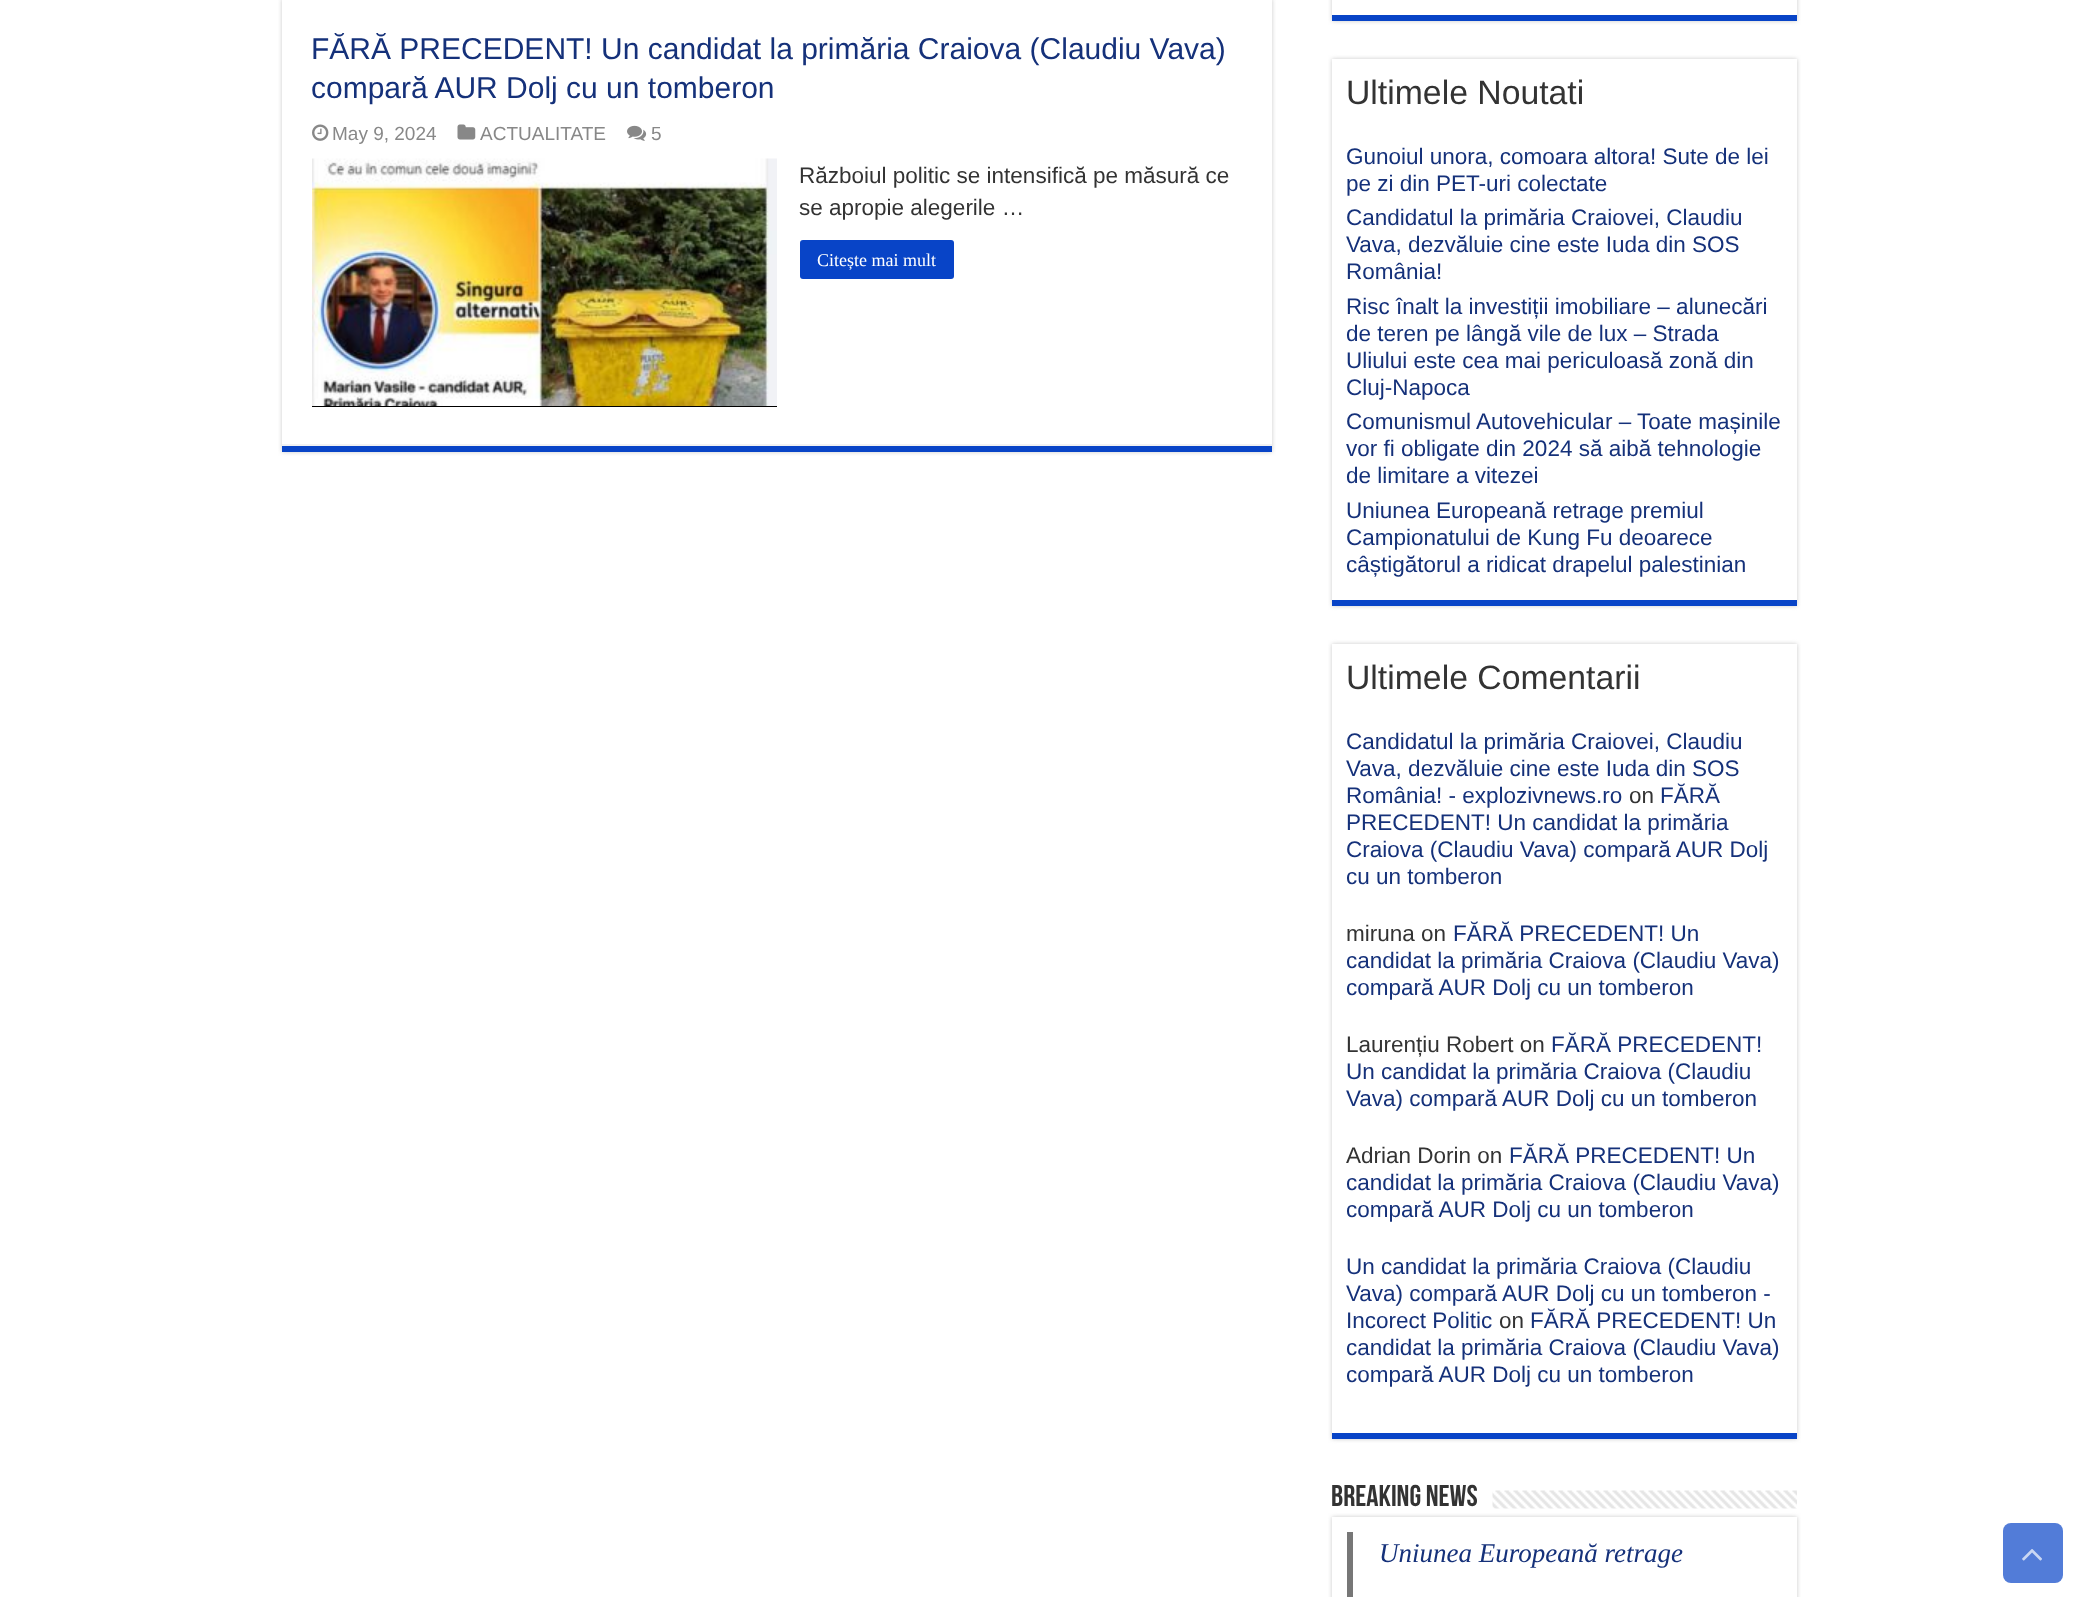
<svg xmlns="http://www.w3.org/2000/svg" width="2077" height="1597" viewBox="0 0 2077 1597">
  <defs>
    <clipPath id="clip1"><path d="M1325 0H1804V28H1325ZM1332-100H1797V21H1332Z" clip-rule="evenodd"/></clipPath>
    <clipPath id="clip2"><path d="M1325 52H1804V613H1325ZM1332 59H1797V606H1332Z" clip-rule="evenodd"/></clipPath>
    <clipPath id="clip3"><path d="M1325 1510H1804V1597H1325ZM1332 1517H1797V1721H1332Z" clip-rule="evenodd"/></clipPath>
  </defs>
  <rect width="100%" height="100%" fill="#fff"/>
  <path d="M282 -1h990v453H282z" fill="#cacaca" filter="blur(2px)"/>
  <path d="M282 0h990v444H282z" fill="#fff"/>
  <path d="M282 446h990v6H282z" fill="#0844c7"/>
  <path d="M282 444h990v2H282z" fill="#f2f2f2"/>
  <image x="312" y="124" width="17" height="17" href="img/1.png"/>
  <image x="457" y="124" width="19" height="16" href="img/2.png"/>
  <image x="627" y="125" width="20" height="16" href="img/3.png"/>
  <path d="M312 406h465v1H312z" fill="#000"/>
  <image x="312" y="158" width="465" height="248" href="img/4.png"/>
  <rect x="800" y="240" width="154" height="39" rx="3" fill="#0844c7"/>
  <g clip-path="url(#clip1)">
    <path d="M1332 -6h465v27H1332z" fill="#cacaca" filter="blur(2px)"/>
  </g>
  <path d="M1332 15h465v6H1332z" fill="#0844c7"/>
  <g clip-path="url(#clip2)">
    <path d="M1332 59h465v547H1332z" fill="#cacaca" filter="blur(2px)"/>
  </g>
  <path d="M1332 600h465v6H1332z" fill="#0844c7"/>
  <path d="M1332 644h465v795H1332z" fill="#cacaca" filter="blur(2px)"/>
  <path d="M1332 644h465v789H1332z" fill="#fff"/>
  <path d="M1332 1433h465v6H1332z" fill="#0844c7"/>
  <image x="1492" y="1490" width="305" height="19" href="img/5.png"/>
  <g clip-path="url(#clip3)">
    <path d="M1332 1517h465v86H1332z" fill="#cacaca" filter="blur(2px)"/>
  </g>
  <path d="M1347 1532h6v65H1347z" fill="#777"/>
  <rect x="2003" y="1523" width="60" height="60" rx="8" fill="#527cd8"/>
  <image x="2022" y="1549" width="20" height="12" href="img/6.png"/>
  <g font-family="Liberation Sans" font-size="30" fill="#15317a">
    <text x="311" y="59">FĂRĂ PRECEDENT! Un candidat la primăria Craiova (Claudiu Vava)</text>
    <text x="311" y="98">compară AUR Dolj cu un tomberon</text>
  </g>
  <g font-family="Liberation Sans" font-size="19" fill="#888">
    <text x="332" y="140">May 9, 2024</text>
    <text x="480" y="140">ACTUALITATE</text>
    <text x="651" y="140">5</text>
  </g>
  <g font-family="Liberation Sans" font-size="22.5" fill="#333">
    <text x="799" y="183">Războiul politic se intensifică pe măsură ce</text>
    <text x="799" y="215">se apropie alegerile …</text>
  </g>
  <text x="817" y="266" font-family="Liberation Serif" font-size="18" fill="#fff">Citește mai mult</text>
  <text x="1346" y="104" font-family="Liberation Sans" font-size="33.75" fill="#333">Ultimele Noutati</text>
  <g font-family="Liberation Sans" font-size="22.5" fill="#15317a">
    <text x="1346" y="164">Gunoiul unora, comoara altora! Sute de lei</text>
    <text x="1346" y="191">pe zi din PET-uri colectate</text>
    <text x="1346" y="225">Candidatul la primăria Craiovei, Claudiu</text>
    <text x="1346" y="252">Vava, dezvăluie cine este Iuda din SOS</text>
    <text x="1346" y="279">România!</text>
    <text x="1346" y="314">Risc înalt la investiții imobiliare – alunecări</text>
    <text x="1346" y="341">de teren pe lângă vile de lux – Strada</text>
    <text x="1346" y="368">Uliului este cea mai periculoasă zonă din</text>
    <text x="1346" y="395">Cluj-Napoca</text>
    <text x="1346" y="429">Comunismul Autovehicular – Toate mașinile</text>
    <text x="1346" y="456">vor fi obligate din 2024 să aibă tehnologie</text>
    <text x="1346" y="483">de limitare a vitezei</text>
    <text x="1346" y="518">Uniunea Europeană retrage premiul</text>
    <text x="1346" y="545">Campionatului de Kung Fu deoarece</text>
    <text x="1346" y="572">câștigătorul a ridicat drapelul palestinian</text>
  </g>
  <text x="1346" y="689" font-family="Liberation Sans" font-size="33.75" fill="#333">Ultimele Comentarii</text>
  <g font-family="Liberation Sans" font-size="22.5" fill="#15317a">
    <text x="1346" y="749">Candidatul la primăria Craiovei, Claudiu</text>
    <text x="1346" y="776">Vava, dezvăluie cine este Iuda din SOS</text>
    <text x="1346" y="803">România! - explozivnews.ro</text>
  </g>
  <text x="1629" y="803" font-family="Liberation Sans" font-size="22.5" fill="#333">on</text>
  <g font-family="Liberation Sans" font-size="22.5" fill="#15317a">
    <text x="1660" y="803">FĂRĂ</text>
    <text x="1346" y="830">PRECEDENT! Un candidat la primăria</text>
    <text x="1346" y="857">Craiova (Claudiu Vava) compară AUR Dolj</text>
    <text x="1346" y="884">cu un tomberon</text>
  </g>
  <text x="1346" y="941" font-family="Liberation Sans" font-size="22.5" fill="#333">miruna on</text>
  <g font-family="Liberation Sans" font-size="22.5" fill="#15317a">
    <text x="1453" y="941">FĂRĂ PRECEDENT! Un</text>
    <text x="1346" y="968">candidat la primăria Craiova (Claudiu Vava)</text>
    <text x="1346" y="995">compară AUR Dolj cu un tomberon</text>
  </g>
  <text x="1346" y="1052" font-family="Liberation Sans" font-size="22.5" fill="#333">Laurențiu Robert on</text>
  <g font-family="Liberation Sans" font-size="22.5" fill="#15317a">
    <text x="1551" y="1052">FĂRĂ PRECEDENT!</text>
    <text x="1346" y="1079">Un candidat la primăria Craiova (Claudiu</text>
    <text x="1346" y="1106">Vava) compară AUR Dolj cu un tomberon</text>
  </g>
  <text x="1346" y="1163" font-family="Liberation Sans" font-size="22.5" fill="#333">Adrian Dorin on</text>
  <g font-family="Liberation Sans" font-size="22.5" fill="#15317a">
    <text x="1509" y="1163">FĂRĂ PRECEDENT! Un</text>
    <text x="1346" y="1190">candidat la primăria Craiova (Claudiu Vava)</text>
    <text x="1346" y="1217">compară AUR Dolj cu un tomberon</text>
    <text x="1346" y="1274">Un candidat la primăria Craiova (Claudiu</text>
    <text x="1346" y="1301">Vava) compară AUR Dolj cu un tomberon -</text>
    <text x="1346" y="1328">Incorect Politic</text>
  </g>
  <text x="1499" y="1328" font-family="Liberation Sans" font-size="22.5" fill="#333">on</text>
  <g font-family="Liberation Sans" font-size="22.5" fill="#15317a">
    <text x="1530" y="1328">FĂRĂ PRECEDENT! Un</text>
    <text x="1346" y="1355">candidat la primăria Craiova (Claudiu Vava)</text>
    <text x="1346" y="1382">compară AUR Dolj cu un tomberon</text>
  </g>
  <text x="1331" y="1506" font-family="Bebas Neue" font-size="30" font-weight="bold" fill="#333">BREAKING NEWS</text>
  <text x="1379" y="1562" font-family="Liberation Serif" font-size="27" font-style="italic" fill="#15317a">Uniunea Europeană retrage</text>
</svg>
